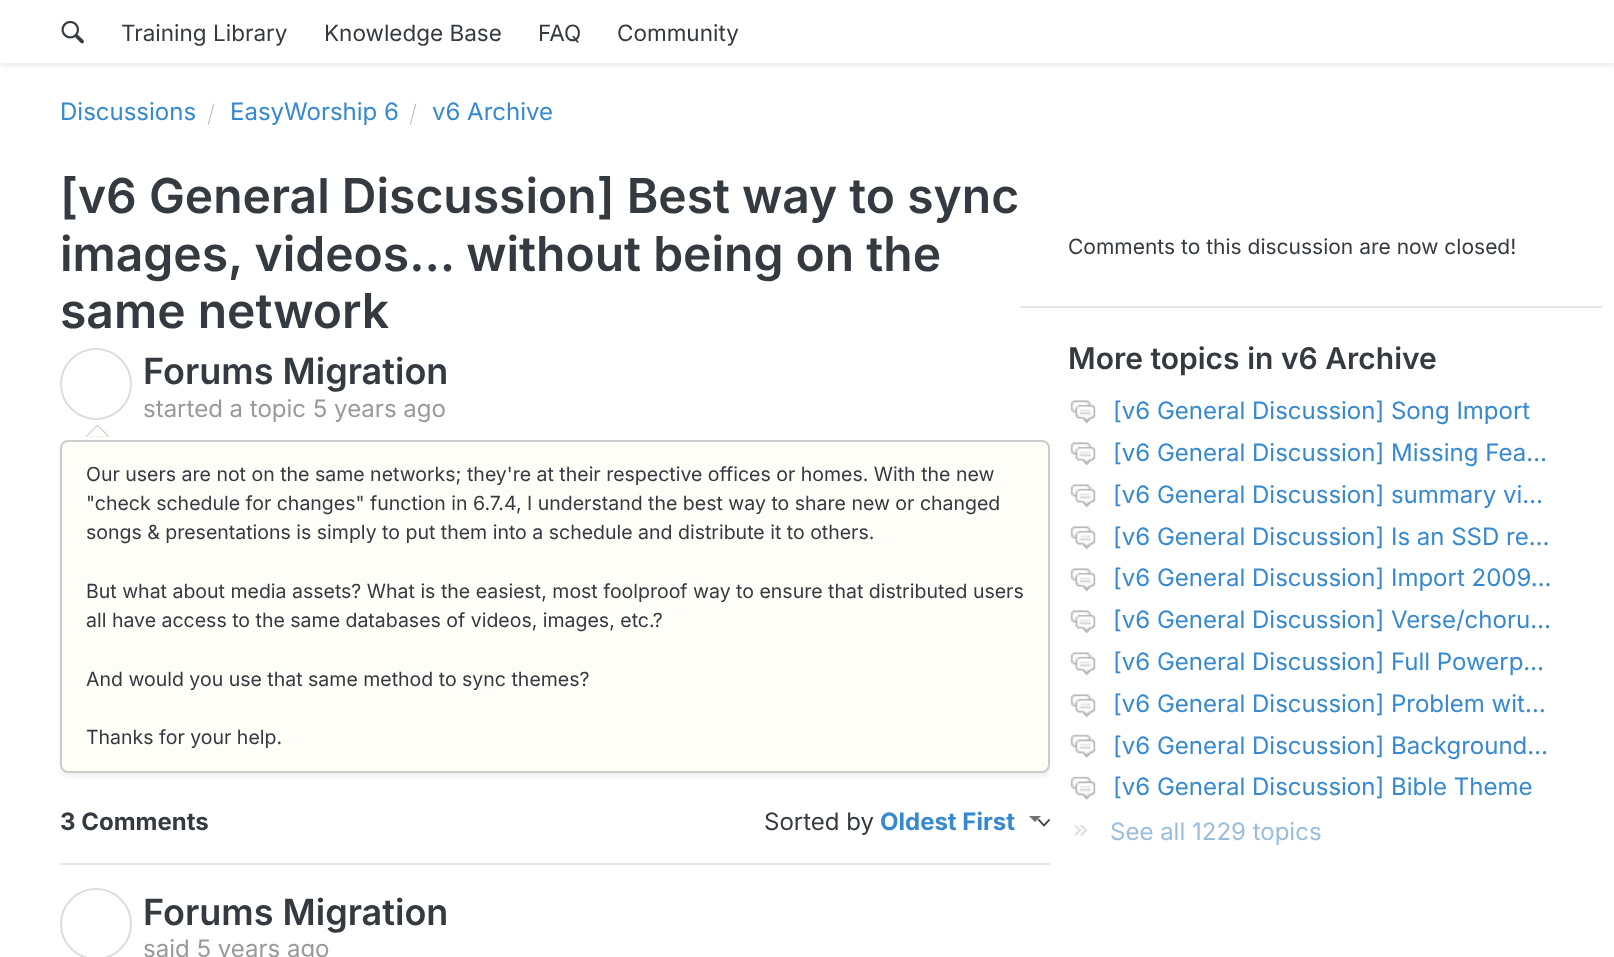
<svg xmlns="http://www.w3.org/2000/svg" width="1614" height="957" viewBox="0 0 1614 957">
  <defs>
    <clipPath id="clip1"><path d="M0 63h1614v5H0z"/></clipPath>
  </defs>
  <rect width="100%" height="100%" fill="#fff"/>
  <g clip-path="url(#clip1)">
    <path d="M-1 -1h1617v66H-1z" fill="#0000001a" filter="blur(4px)"/>
  </g>
  <image x="61" y="20" width="23" height="24" href="img/1.png"/>
  <circle cx="96" cy="384" r="35" fill="none" stroke="#ddd" stroke-width="2"/>
  <path d="M109.5 436.5H85.5L97.5 424.5Z" fill="#ccc"/>
  <path d="M108 436.5H87L97.5 426Z" fill="#fffdf8"/>
  <rect x="60" y="444" width="990" height="333" rx="8" fill="#0000000d" filter="blur(2px)"/>
  <rect x="61" y="441" width="988" height="331" rx="7" fill="#fffdf8" stroke="#ccc" stroke-width="2"/>
  <path d="M1029 816H1041L1035 822Z" fill="#6f6f6f"/>
  <image x="1038" y="819" width="12" height="8" href="img/2.png"/>
  <path d="M60 863h990v2H60z" fill="#e6e6e6"/>
  <circle cx="96" cy="924" r="35" fill="none" stroke="#ddd" stroke-width="2"/>
  <path d="M1020 306h582v2H1020z" fill="#e6e6e6"/>
  <image x="1070" y="400" width="26" height="24" href="img/3.png"/>
  <image x="1070" y="442" width="26" height="24" href="img/3.png"/>
  <image x="1070" y="484" width="26" height="24" href="img/3.png"/>
  <image x="1070" y="526" width="26" height="24" href="img/3.png"/>
  <image x="1070" y="568" width="26" height="24" href="img/3.png"/>
  <image x="1070" y="610" width="26" height="24" href="img/3.png"/>
  <image x="1070" y="652" width="26" height="24" href="img/3.png"/>
  <image x="1070" y="694" width="26" height="24" href="img/3.png"/>
  <image x="1070" y="734" width="26" height="24" href="img/4.png"/>
  <image x="1070" y="776" width="26" height="24" href="img/4.png"/>
  <image x="1074" y="824" width="14" height="12" href="img/5.png"/>
  <g font-family="Inter" font-size="22.5" fill="#343a40">
    <text x="121" y="41">Training Library</text>
    <text x="324" y="41">Knowledge Base</text>
    <text x="538" y="41">FAQ</text>
    <text x="617" y="41">Community</text>
  </g>
  <text x="60" y="120" font-family="Inter" font-size="24" fill="#3689cf">Discussions</text>
  <text x="207" y="122" font-family="Inter" font-size="24" font-weight="200" fill="#bbb">/</text>
  <text x="230" y="120" font-family="Inter" font-size="24" fill="#3689cf">EasyWorship 6</text>
  <text x="409" y="122" font-family="Inter" font-size="24" font-weight="200" fill="#bbb">/</text>
  <text x="432" y="120" font-family="Inter" font-size="24" fill="#3689cf">v6 Archive</text>
  <g font-family="Inter" font-size="48" font-weight="600" fill="#343a40">
    <text x="60" y="213">[v6 General Discussion] Best way to sync</text>
    <text x="60" y="271">images, videos… without being on the</text>
    <text x="60" y="328">same network</text>
  </g>
  <text x="143" y="384" font-family="Inter" font-size="36" font-weight="600" fill="#343a40">Forums Migration</text>
  <text x="143" y="417" font-family="Inter" font-size="24" fill="#999">started a topic 5 years ago</text>
  <g font-family="Inter" font-size="19.5" fill="#343a40">
    <text x="86" y="481">Our users are not on the same networks; they're at their respective offices or homes. With the new</text>
    <text x="86" y="510">"check schedule for changes" function in 6.7.4, I understand the best way to share new or changed</text>
    <text x="86" y="539">songs &amp; presentations is simply to put them into a schedule and distribute it to others.</text>
    <text x="86" y="598">But what about media assets? What is the easiest, most foolproof way to ensure that distributed users</text>
    <text x="86" y="627">all have access to the same databases of videos, images, etc.?</text>
    <text x="86" y="686">And would you use that same method to sync themes?</text>
    <text x="86" y="744">Thanks for your help.</text>
  </g>
  <text x="60" y="830" font-family="Inter" font-size="24" font-weight="bold" fill="#343a40">3 Comments</text>
  <text x="764" y="830" font-family="Inter" font-size="24" fill="#343a40">Sorted by</text>
  <text x="880" y="830" font-family="Inter" font-size="24" font-weight="bold" fill="#3689cf">Oldest First</text>
  <text x="143" y="925" font-family="Inter" font-size="36" font-weight="600" fill="#343a40">Forums Migration</text>
  <text x="143" y="957" font-family="Inter" font-size="24" fill="#999">said 5 years ago</text>
  <text x="1068" y="254" font-family="Inter" font-size="21" fill="#343a40">Comments to this discussion are now closed!</text>
  <text x="1068" y="369" font-family="Inter" font-size="30" font-weight="600" fill="#343a40">More topics in v6 Archive</text>
  <g font-family="Inter" font-size="24" fill="#3689cf">
    <text x="1113" y="419">[v6 General Discussion] Song Import</text>
    <text x="1113" y="461">[v6 General Discussion] Missing Fea…</text>
    <text x="1113" y="503">[v6 General Discussion] summary vi…</text>
    <text x="1113" y="545">[v6 General Discussion] Is an SSD re…</text>
    <text x="1113" y="586">[v6 General Discussion] Import 2009…</text>
    <text x="1113" y="628">[v6 General Discussion] Verse/choru…</text>
    <text x="1113" y="670">[v6 General Discussion] Full Powerp…</text>
    <text x="1113" y="712">[v6 General Discussion] Problem wit…</text>
    <text x="1113" y="754">[v6 General Discussion] Background…</text>
    <text x="1113" y="795">[v6 General Discussion] Bible Theme</text>
  </g>
  <text x="1110" y="840" font-family="Inter" font-size="24" fill="#99bddb">See all 1229 topics</text>
</svg>
